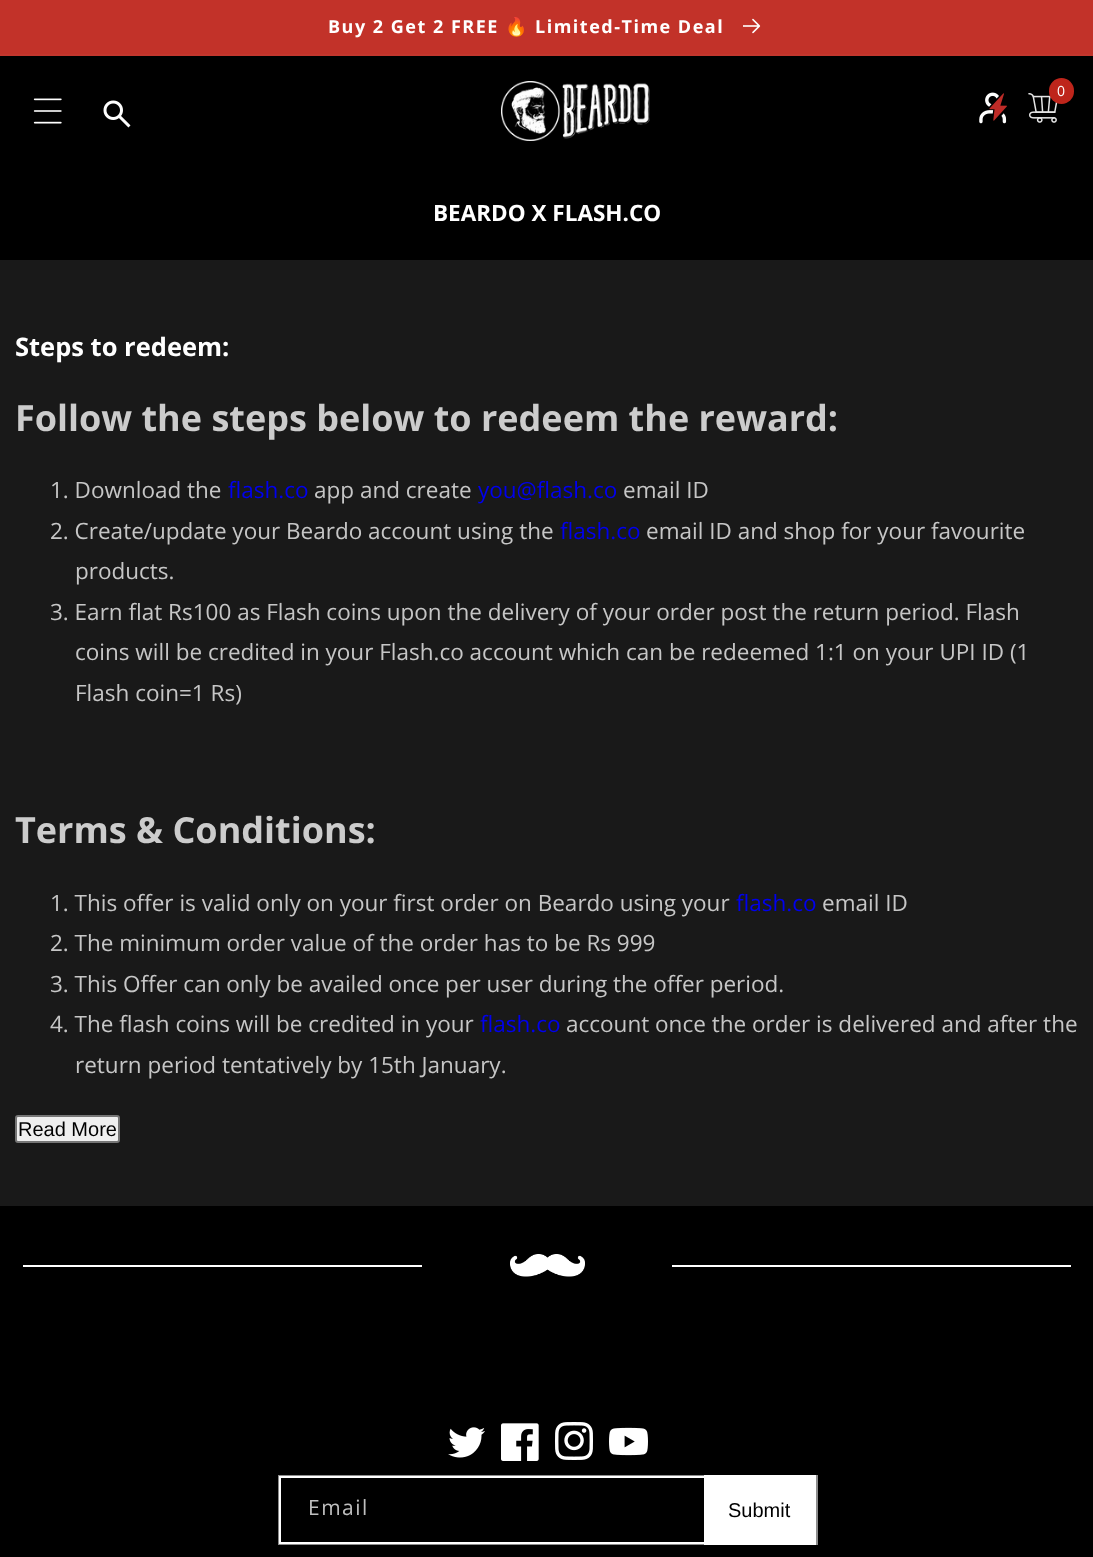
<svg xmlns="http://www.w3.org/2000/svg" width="1093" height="1557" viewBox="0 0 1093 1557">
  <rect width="100%" height="100%" fill="#000"/>
  <path d="M0 54h1093v2H0z" fill="#c3362d"/>
  <path d="M0 0h1093v54H0z" fill="#c23229"/>
  <image x="743" y="18" width="18" height="16" href="img/1.png"/>
  <image x="501" y="81" width="149" height="60" href="img/2.png"/>
  <image x="979" y="92" width="28" height="32" href="img/3.png"/>
  <image x="1028" y="93" width="30" height="30" href="img/4.png"/>
  <rect x="1049" y="78" width="25" height="26" rx="12.5" fill="#be251b"/>
  <image x="33" y="98" width="29" height="26" href="img/5.png"/>
  <image x="103" y="100" width="28" height="28" href="img/6.png"/>
  <path d="M0 260h1093v946H0z" fill="#191919"/>
  <rect x="16" y="1116" width="103" height="26" rx="2" fill="#efefef" stroke="#767676" stroke-width="2"/>
  <path d="M23 1265h399v2H23z" fill="#fff"/>
  <image x="510" y="1254" width="75" height="23" href="img/7.png"/>
  <path d="M672 1265h399v2H672z" fill="#fff"/>
  <image x="448" y="1427" width="37" height="31" href="img/8.png"/>
  <image x="501" y="1423" width="38" height="38" href="img/9.png"/>
  <image x="555" y="1422" width="38" height="38" href="img/10.png"/>
  <image x="609" y="1427" width="39" height="29" href="img/11.png"/>
  <path d="M280 1477h535v66H280z" fill="none" stroke="#fff" stroke-width="2"/>
  <path d="M279 1476h538v68H279z" fill="none" stroke="#ffffff8c" stroke-width="2"/>
  <path d="M704 1475h112v70H704z" fill="#fff"/>
  <text x="328" y="33" font-family="Open Sans" font-size="18" font-weight="bold" letter-spacing="1.5" fill="#fff">Buy 2 Get 2 FREE</text>
  <text x="505" y="33" font-family="Noto Color Emoji" font-size="18" font-weight="bold" letter-spacing="1.5" fill="#fff">🔥</text>
  <text x="535" y="33" font-family="Open Sans" font-size="18" font-weight="bold" letter-spacing="1.5" fill="#fff">Limited-Time Deal</text>
  <text x="1057" y="96" font-family="Open Sans" font-size="14" fill="#fff">0</text>
  <text x="433" y="221" font-family="Open Sans" font-size="22.5" font-weight="bold" fill="#fff">BEARDO X FLASH.CO</text>
  <text x="15" y="356" font-family="Open Sans" font-size="25.5" font-weight="bold" fill="#fff">Steps to redeem:</text>
  <text x="15" y="431" font-family="Open Sans" font-size="36" font-weight="bold" fill="#ccc">Follow the steps below to redeem the reward:</text>
  <text x="50" y="498" font-family="Open Sans" font-size="22.5" fill="#c6c6c6">1. Download the</text>
  <text x="228" y="498" font-family="Open Sans" font-size="22.5" fill="#00e">flash.co</text>
  <text x="314" y="498" font-family="Open Sans" font-size="22.5" fill="#c6c6c6">app and create</text>
  <text x="478" y="498" font-family="Open Sans" font-size="22.5" fill="#00e">you@flash.co</text>
  <g font-family="Open Sans" font-size="22.5" fill="#c6c6c6">
    <text x="623" y="498">email ID</text>
    <text x="50" y="539">2. Create/update your Beardo account using the</text>
  </g>
  <text x="560" y="539" font-family="Open Sans" font-size="22.5" fill="#00e">flash.co</text>
  <g font-family="Open Sans" font-size="22.5" fill="#c6c6c6">
    <text x="646" y="539">email ID and shop for your favourite</text>
    <text x="75" y="579">products.</text>
    <text x="50" y="620">3. Earn flat Rs100 as Flash coins upon the delivery of your order post the return period. Flash</text>
    <text x="75" y="660">coins will be credited in your Flash.co account which can be redeemed 1:1 on your UPI ID (1</text>
    <text x="75" y="701">Flash coin=1 Rs)</text>
  </g>
  <text x="15" y="843" font-family="Open Sans" font-size="36" font-weight="bold" fill="#ccc">Terms &amp; Conditions:</text>
  <text x="50" y="911" font-family="Open Sans" font-size="22.5" fill="#c6c6c6">1. This offer is valid only on your first order on Beardo using your</text>
  <text x="736" y="911" font-family="Open Sans" font-size="22.5" fill="#00e">flash.co</text>
  <g font-family="Open Sans" font-size="22.5" fill="#c6c6c6">
    <text x="822" y="911">email ID</text>
    <text x="50" y="951">2. The minimum order value of the order has to be Rs 999</text>
    <text x="50" y="992">3. This Offer can only be availed once per user during the offer period.</text>
    <text x="50" y="1032">4. The flash coins will be credited in your</text>
  </g>
  <text x="480" y="1032" font-family="Open Sans" font-size="22.5" fill="#00e">flash.co</text>
  <g font-family="Open Sans" font-size="22.5" fill="#c6c6c6">
    <text x="566" y="1032">account once the order is delivered and after the</text>
    <text x="75" y="1073">return period tentatively by 15th January.</text>
  </g>
  <text x="18" y="1136" font-family="Liberation Sans" font-size="20" fill="#000">Read More</text>
  <text x="308" y="1515" font-family="Open Sans" font-size="21" letter-spacing="1.5" fill="#bfbfbf">Email</text>
  <text x="728" y="1517" font-family="Liberation Sans" font-size="20" fill="#000">Submit</text>
</svg>
